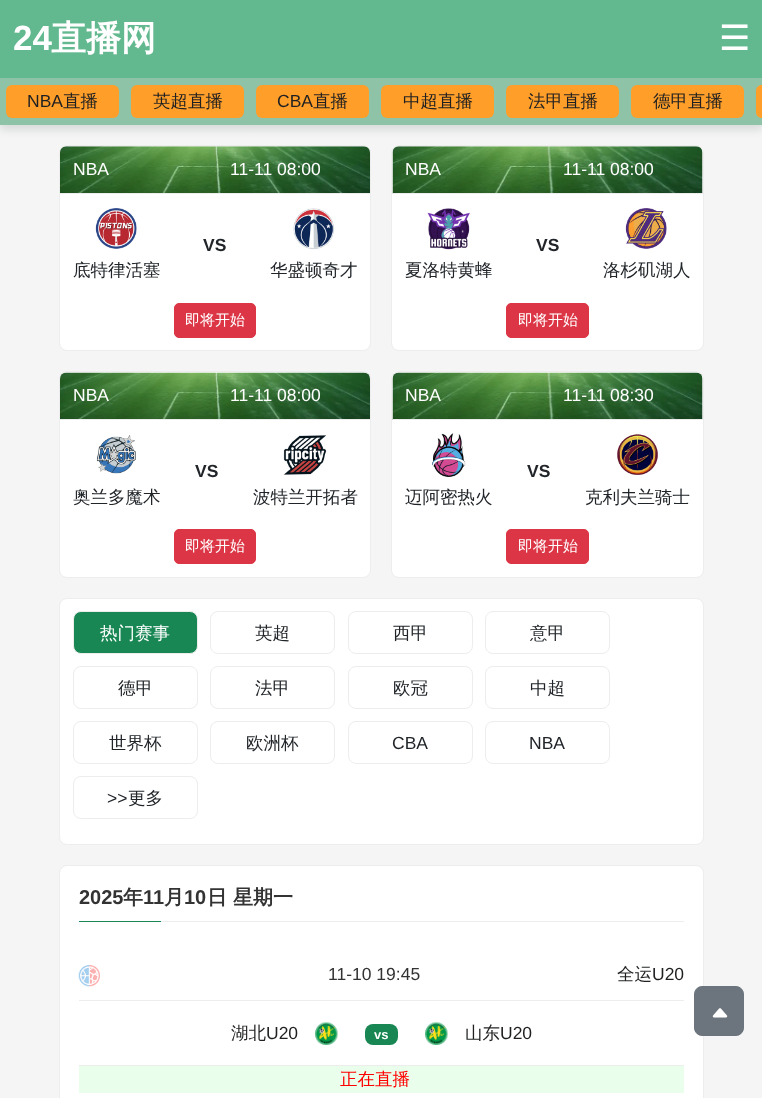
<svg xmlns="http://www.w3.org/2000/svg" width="762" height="1098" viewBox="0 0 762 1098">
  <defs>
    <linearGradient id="g1" gradientUnits="userSpaceOnUse" x1="381" y1="0" x2="381" y2="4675"><stop offset="0" stop-color="#dbf6e8"/><stop offset="0.03" stop-color="#f5f5f5"/></linearGradient>
  </defs>
  <rect width="100%" height="100%" fill="#fff"/>
  <path d="M0 125h762v973H0z" fill="url(#g1)"/>
  <path d="M0 5h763v125H0z" fill="#0000001a" filter="blur(4px)"/>
  <path d="M0 0h762v78H0z" fill="#62b88f"/>
  <path d="M0 78h762v47H0z" fill="#8fc3a8"/>
  <rect x="6" y="85" width="113" height="33" rx="6" fill="#ff9e29"/>
  <rect x="131" y="85" width="113" height="33" rx="6" fill="#ff9e29"/>
  <rect x="256" y="85" width="113" height="33" rx="6" fill="#ff9e29"/>
  <rect x="381" y="85" width="113" height="33" rx="6" fill="#ff9e29"/>
  <rect x="506" y="85" width="113" height="33" rx="6" fill="#ff9e29"/>
  <rect x="631" y="85" width="113" height="33" rx="6" fill="#ff9e29"/>
  <path d="M762 85H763V118H762C758.5 118 756 115.5 756 112V91C756 87.5 758.5 85 762 85Z" fill="#ff9e29"/>
  <rect x="59.5" y="145.5" width="311" height="205" rx="7.5" fill="#fff" stroke="#ededed"/>
  <path d="M66 146H364C367.5 146 370 148.5 370 152V194H60V152C60 148.5 62.5 146 66 146Z" fill="#f8f9fa"/>
  <image x="60" y="146" width="310" height="47" href="img/1.png"/>
  <path d="M60 193h310v1H60z" fill="#ededed"/>
  <image x="95" y="208" width="42" height="41" href="img/2.png"/>
  <image x="293" y="208" width="42" height="42" href="img/3.png"/>
  <rect x="174.5" y="303.5" width="81" height="34" rx="4.5" fill="#dc3545" stroke="#dc3545"/>
  <rect x="391.5" y="145.5" width="312" height="205" rx="7.5" fill="#fff" stroke="#ededed"/>
  <path d="M399 146H697C700.5 146 703 148.5 703 152V194H393V152C393 148.5 395.5 146 399 146Z" fill="#f8f9fa"/>
  <image x="392" y="146" width="311" height="48" href="img/4.png"/>
  <path d="M393 193h310v1H393z" fill="#ededed"/>
  <image x="427" y="208" width="43" height="42" href="img/5.png"/>
  <image x="625" y="208" width="42" height="41" href="img/6.png"/>
  <rect x="506.5" y="303.5" width="82" height="34" rx="4.5" fill="#dc3545" stroke="#dc3545"/>
  <rect x="59.5" y="371.5" width="311" height="206" rx="7.5" fill="#fff" stroke="#ededed"/>
  <image x="60" y="372" width="310" height="47" href="img/7.png"/>
  <path d="M60 419h310v1H60z" fill="#ededed"/>
  <image x="96" y="435" width="40" height="39" href="img/8.png"/>
  <image x="283" y="435" width="44" height="40" href="img/9.png"/>
  <rect x="174.5" y="529.5" width="81" height="34" rx="4.5" fill="#dc3545" stroke="#dc3545"/>
  <rect x="391.5" y="371.5" width="312" height="206" rx="7.5" fill="#fff" stroke="#ededed"/>
  <path d="M399 373H697C700.5 373 703 375.5 703 379V420H393V379C393 375.5 395.5 373 399 373Z" fill="#f8f9fa"/>
  <image x="392" y="372" width="311" height="48" href="img/10.png"/>
  <path d="M393 419h310v1H393z" fill="#ededed"/>
  <image x="432" y="433" width="34" height="44" href="img/11.png"/>
  <image x="617" y="434" width="41" height="41" href="img/12.png"/>
  <rect x="506.5" y="529.5" width="82" height="34" rx="4.5" fill="#dc3545" stroke="#dc3545"/>
  <rect x="59.5" y="598.5" width="644" height="246" rx="7.5" fill="#fff" stroke="#ededed"/>
  <rect x="73.5" y="611.5" width="124" height="42" rx="7.5" fill="#198754" stroke="#ededed"/>
  <rect x="210.5" y="611.5" width="124" height="42" rx="7.5" fill="none" stroke="#ededed"/>
  <rect x="348.5" y="611.5" width="124" height="42" rx="7.5" fill="none" stroke="#ededed"/>
  <rect x="485.5" y="611.5" width="124" height="42" rx="7.5" fill="none" stroke="#ededed"/>
  <rect x="73.5" y="666.5" width="124" height="42" rx="7.5" fill="none" stroke="#ededed"/>
  <rect x="210.5" y="666.5" width="124" height="42" rx="7.5" fill="none" stroke="#ededed"/>
  <rect x="348.5" y="666.5" width="124" height="42" rx="7.5" fill="none" stroke="#ededed"/>
  <rect x="485.5" y="666.5" width="124" height="42" rx="7.5" fill="none" stroke="#ededed"/>
  <rect x="73.5" y="721.5" width="124" height="42" rx="7.5" fill="none" stroke="#ededed"/>
  <rect x="210.5" y="721.5" width="124" height="42" rx="7.5" fill="none" stroke="#ededed"/>
  <rect x="348.5" y="721.5" width="124" height="42" rx="7.5" fill="none" stroke="#ededed"/>
  <rect x="485.5" y="721.5" width="124" height="42" rx="7.5" fill="none" stroke="#ededed"/>
  <rect x="73.5" y="776.5" width="124" height="42" rx="7.5" fill="none" stroke="#ededed"/>
  <rect x="59.5" y="865.5" width="644" height="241" rx="7.5" fill="#fff" stroke="#ededed"/>
  <path d="M161 921h523v1H161z" fill="#ededed"/>
  <path d="M79 921h82v1H79z" fill="#198754"/>
  <image x="78" y="965" width="22" height="22" href="img/13.png"/>
  <path d="M79 1000h605v1H79z" fill="#ededed"/>
  <path d="M79 1065h605v1H79z" fill="#ededed"/>
  <image x="315" y="1022" width="23" height="23" href="img/14.png"/>
  <rect x="365" y="1024" width="33" height="21" rx="8" fill="#198754"/>
  <image x="425" y="1022" width="23" height="23" href="img/14.png"/>
  <path d="M79 1066h605v27H79z" fill="#eaffeb"/>
  <rect x="694.5" y="986.5" width="49" height="49" rx="7.5" fill="#6c757d" stroke="#6c757d"/>
  <image x="712" y="1008" width="16" height="10" href="img/15.png"/>
  <text x="13" y="50" font-family="Liberation Sans" font-size="35" font-weight="bold" fill="#fff">24</text>
  <text x="51" y="50" font-family="WenQuanYi Zen Hei" font-size="35" font-weight="bold" fill="#fff">直播网</text>
  <text x="719" y="50" font-family="DejaVu Sans" font-size="35" fill="#fff">☰</text>
  <text x="27" y="107" font-family="Liberation Sans" font-size="17.5" fill="#1f2021">NBA</text>
  <g font-family="WenQuanYi Zen Hei" font-size="17.5" font-weight="500" fill="#1f2021">
    <text x="63" y="107">直播</text>
    <text x="153" y="107">英超直播</text>
  </g>
  <text x="277" y="107" font-family="Liberation Sans" font-size="17.5" fill="#1f2021">CBA</text>
  <g font-family="WenQuanYi Zen Hei" font-size="17.5" font-weight="500" fill="#1f2021">
    <text x="313" y="107">直播</text>
    <text x="403" y="107">中超直播</text>
    <text x="528" y="107">法甲直播</text>
    <text x="653" y="107">德甲直播</text>
  </g>
  <g font-family="Liberation Sans" font-size="17.5" fill="#fff">
    <text x="73" y="175">NBA</text>
    <text x="230" y="175">11-11 08:00</text>
  </g>
  <text x="203" y="251" font-family="Liberation Sans" font-size="17.5" font-weight="bold" fill="#212529">VS</text>
  <g font-family="WenQuanYi Zen Hei" font-size="17.5" font-weight="500" fill="#212529">
    <text x="73" y="276">底特律活塞</text>
    <text x="270" y="276">华盛顿奇才</text>
  </g>
  <text x="185" y="325" font-family="WenQuanYi Zen Hei" font-size="15" font-weight="500" fill="#fff">即将开始</text>
  <g font-family="Liberation Sans" font-size="17.5" fill="#fff">
    <text x="405" y="175">NBA</text>
    <text x="563" y="175">11-11 08:00</text>
  </g>
  <text x="536" y="251" font-family="Liberation Sans" font-size="17.5" font-weight="bold" fill="#212529">VS</text>
  <g font-family="WenQuanYi Zen Hei" font-size="17.5" font-weight="500" fill="#212529">
    <text x="405" y="276">夏洛特黄蜂</text>
    <text x="603" y="276">洛杉矶湖人</text>
  </g>
  <text x="518" y="325" font-family="WenQuanYi Zen Hei" font-size="15" font-weight="500" fill="#fff">即将开始</text>
  <g font-family="Liberation Sans" font-size="17.5" fill="#fff">
    <text x="73" y="401">NBA</text>
    <text x="230" y="401">11-11 08:00</text>
  </g>
  <text x="195" y="477" font-family="Liberation Sans" font-size="17.5" font-weight="bold" fill="#212529">VS</text>
  <g font-family="WenQuanYi Zen Hei" font-size="17.5" font-weight="500" fill="#212529">
    <text x="73" y="503">奥兰多魔术</text>
    <text x="253" y="503">波特兰开拓者</text>
  </g>
  <text x="185" y="551" font-family="WenQuanYi Zen Hei" font-size="15" font-weight="500" fill="#fff">即将开始</text>
  <g font-family="Liberation Sans" font-size="17.5" fill="#fff">
    <text x="405" y="401">NBA</text>
    <text x="563" y="401">11-11 08:30</text>
  </g>
  <text x="527" y="477" font-family="Liberation Sans" font-size="17.5" font-weight="bold" fill="#212529">VS</text>
  <g font-family="WenQuanYi Zen Hei" font-size="17.5" font-weight="500" fill="#212529">
    <text x="405" y="503">迈阿密热火</text>
    <text x="585" y="503">克利夫兰骑士</text>
  </g>
  <text x="518" y="551" font-family="WenQuanYi Zen Hei" font-size="15" font-weight="500" fill="#fff">即将开始</text>
  <text x="100" y="639" font-family="WenQuanYi Zen Hei" font-size="17.5" font-weight="500" fill="#fff">热门赛事</text>
  <g font-family="WenQuanYi Zen Hei" font-size="17.5" font-weight="500" fill="#212529">
    <text x="255" y="639">英超</text>
    <text x="393" y="639">西甲</text>
    <text x="530" y="639">意甲</text>
    <text x="118" y="694">德甲</text>
    <text x="255" y="694">法甲</text>
    <text x="393" y="694">欧冠</text>
    <text x="530" y="694">中超</text>
    <text x="109" y="749">世界杯</text>
    <text x="246" y="749">欧洲杯</text>
  </g>
  <g font-family="Liberation Sans" font-size="17.5" fill="#212529">
    <text x="392" y="749">CBA</text>
    <text x="529" y="749">NBA</text>
    <text x="107" y="804">&gt;&gt;</text>
  </g>
  <text x="128" y="804" font-family="WenQuanYi Zen Hei" font-size="17.5" font-weight="500" fill="#212529">更多</text>
  <text x="79" y="904" font-family="Liberation Sans" font-size="20" font-weight="bold" fill="#333">2025</text>
  <text x="123" y="904" font-family="WenQuanYi Zen Hei" font-size="20" font-weight="bold" fill="#333">年</text>
  <text x="143" y="904" font-family="Liberation Sans" font-size="20" font-weight="bold" fill="#333">11</text>
  <text x="164" y="904" font-family="WenQuanYi Zen Hei" font-size="20" font-weight="bold" fill="#333">月</text>
  <text x="184" y="904" font-family="Liberation Sans" font-size="20" font-weight="bold" fill="#333">10</text>
  <text x="207" y="904" font-family="WenQuanYi Zen Hei" font-size="20" font-weight="bold" fill="#333">日 星期一</text>
  <text x="328" y="980" font-family="Liberation Sans" font-size="17.5" fill="#333">11-10 19:45</text>
  <text x="617" y="980" font-family="WenQuanYi Zen Hei" font-size="17.5" font-weight="500" fill="#1f2021">全运</text>
  <text x="652" y="980" font-family="Liberation Sans" font-size="17.5" fill="#1f2021">U20</text>
  <text x="231" y="1039" font-family="WenQuanYi Zen Hei" font-size="17.5" font-weight="500" fill="#1f2021">湖北</text>
  <text x="266" y="1039" font-family="Liberation Sans" font-size="17.5" fill="#1f2021">U20</text>
  <text x="374" y="1039" font-family="Liberation Sans" font-size="13" font-weight="bold" fill="#fff">vs</text>
  <text x="465" y="1039" font-family="WenQuanYi Zen Hei" font-size="17.5" font-weight="500" fill="#1f2021">山东</text>
  <text x="500" y="1039" font-family="Liberation Sans" font-size="17.5" fill="#1f2021">U20</text>
  <text x="340" y="1085" font-family="WenQuanYi Zen Hei" font-size="17.5" font-weight="500" fill="#f00">正在直播</text>
</svg>
